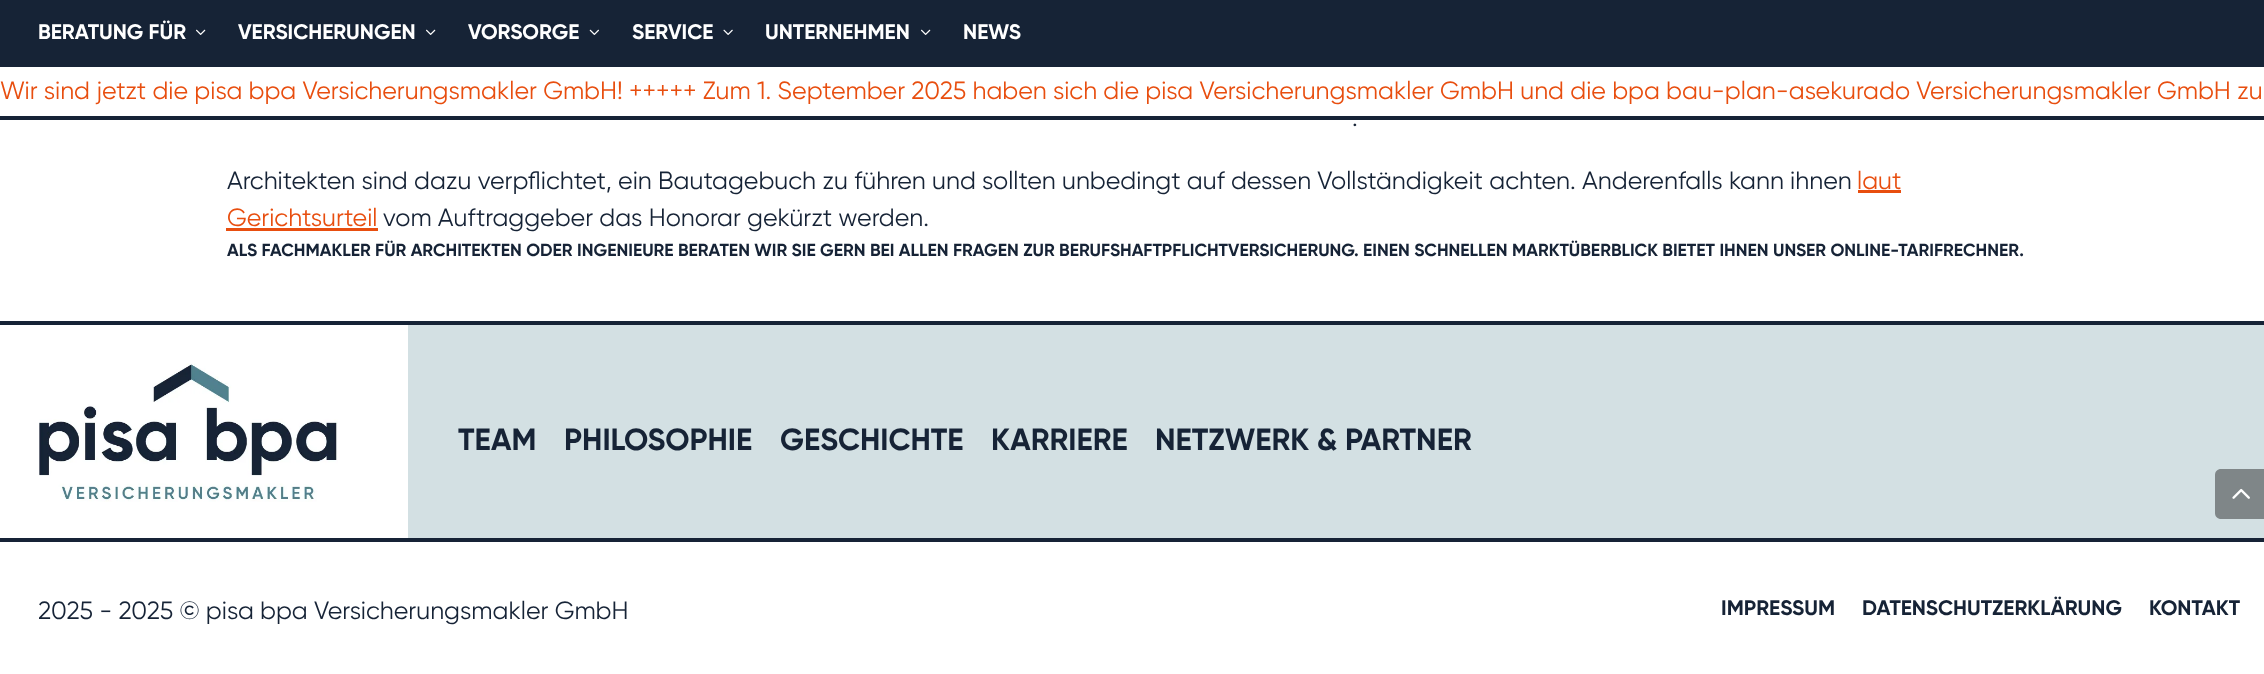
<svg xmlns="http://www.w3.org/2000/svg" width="2264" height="674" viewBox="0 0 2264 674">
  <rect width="100%" height="100%" fill="#fff"/>
  <path d="M0 0h2264v67H0z" fill="#162336"/>
  <image x="196" y="29" width="10" height="6" href="img/1.png"/>
  <image x="426" y="29" width="10" height="6" href="img/1.png"/>
  <image x="589" y="29" width="10" height="6" href="img/2.png"/>
  <image x="723" y="29" width="10" height="6" href="img/3.png"/>
  <image x="921" y="29" width="10" height="6" href="img/1.png"/>
  <path d="M0 116h2264v4H0z" fill="#162336"/>
  <path d="M1858 190h43v3H1858z" fill="#e84e0f"/>
  <path d="M226 228h152v3H226z" fill="#e84e0f"/>
  <path d="M408 325h1856v213H408z" fill="#d3e0e3"/>
  <path d="M0 321h2264v4H0z" fill="#162336"/>
  <image x="39" y="363" width="299" height="139" href="img/4.png"/>
  <path d="M0 538h2264v4H0z" fill="#162336"/>
  <path d="M2221 469H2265V519H2221C2217.5 519 2215 516.5 2215 513V475C2215 471.5 2217.5 469 2221 469Z" fill="#7f8688"/>
  <image x="2232" y="488" width="18" height="11" href="img/5.png"/>
  <g font-family="Gilroy" font-size="21" font-weight="bold" fill="#fff">
    <text x="38" y="39">BERATUNG FÜR</text>
    <text x="238" y="39">VERSICHERUNGEN</text>
    <text x="468" y="39">VORSORGE</text>
    <text x="632" y="39">SERVICE</text>
    <text x="765" y="39">UNTERNEHMEN</text>
    <text x="963" y="39">NEWS</text>
  </g>
  <text x="0" y="99" font-family="Gilroy" font-size="25" fill="#e84e0f">Wir sind jetzt die pisa bpa Versicherungsmakler GmbH! +++++ Zum 1. September 2025 haben sich die pisa Versicherungsmakler GmbH und die bpa bau-plan-asekurado Versicherungsmakler GmbH zu</text>
  <g font-family="Gilroy" font-size="25" fill="#162336">
    <text x="1352" y="126">.</text>
    <text x="227" y="189">Architekten sind dazu verpflichtet, ein Bautagebuch zu führen und sollten unbedingt auf dessen Vollständigkeit achten. Anderenfalls kann ihnen</text>
  </g>
  <g font-family="Gilroy" font-size="25" fill="#e84e0f">
    <text x="1857" y="189">laut</text>
    <text x="227" y="226">Gerichtsurteil</text>
  </g>
  <text x="383" y="226" font-family="Gilroy" font-size="25" fill="#162336">vom Auftraggeber das Honorar gekürzt werden.</text>
  <g font-family="Gilroy" font-size="17.5" font-weight="bold" fill="#162336">
    <text x="227" y="256">ALS FACHMAKLER FÜR ARCHITEKTEN ODER INGENIEURE BERATEN WIR SIE GERN BEI ALLEN FRAGEN ZUR BERUFSHAFTPFLICHTVERSICHERUNG</text>
    <text x="1354" y="256">. EINEN SCHNELLEN MARKTÜBERBLICK BIETET IHNEN UNSER ONLINE-TARIFRECHNER.</text>
  </g>
  <g font-family="Gilroy" font-size="30.6" font-weight="bold" fill="#162336">
    <text x="458" y="450">TEAM</text>
    <text x="564" y="450">PHILOSOPHIE</text>
    <text x="780" y="450">GESCHICHTE</text>
    <text x="991" y="450">KARRIERE</text>
    <text x="1155" y="450">NETZWERK &amp; PARTNER</text>
  </g>
  <text x="38" y="619" font-family="Gilroy" font-size="25" fill="#162336">2025 - 2025 © pisa bpa Versicherungsmakler GmbH</text>
  <g font-family="Gilroy" font-size="21" font-weight="bold" fill="#162336">
    <text x="1721" y="615">IMPRESSUM</text>
    <text x="1862" y="615">DATENSCHUTZERKLÄRUNG</text>
    <text x="2149" y="615">KONTAKT</text>
  </g>
</svg>
